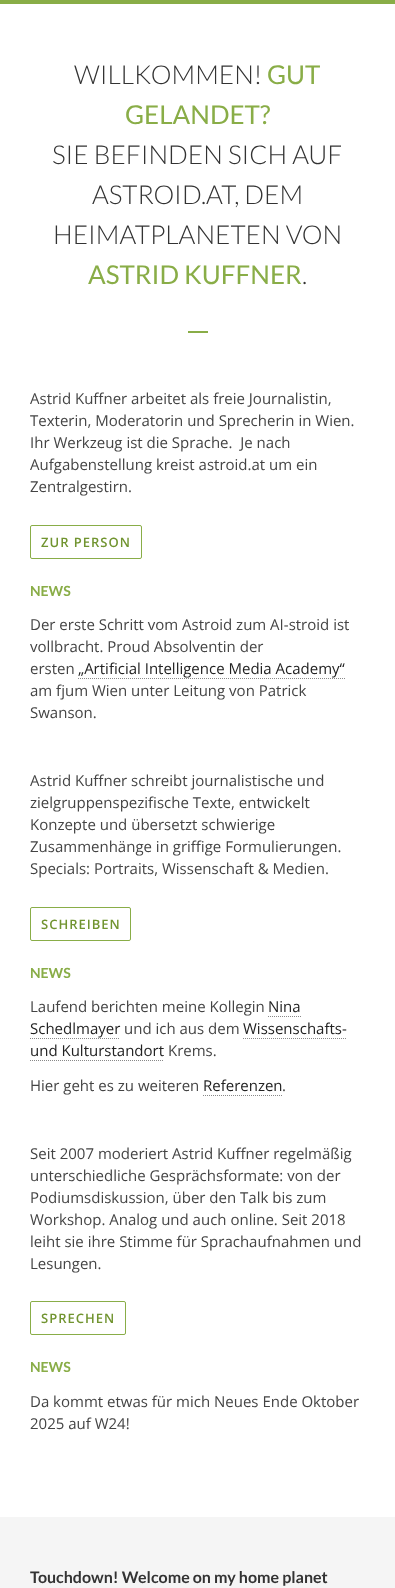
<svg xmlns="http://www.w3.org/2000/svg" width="395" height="1588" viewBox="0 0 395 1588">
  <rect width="100%" height="100%" fill="#fff"/>
  <path d="M0 0h395v4H0z" fill="#89ad47"/>
  <path d="M188 331h20v2H188z" fill="#89ad47"/>
  <rect x="30.5" y="525.5" width="111" height="33" rx="1.5" fill="none" stroke="#89ad47"/>
  <path d="M78 678.5H345" fill="none" stroke="#888" stroke-dasharray="1 1"/>
  <rect x="30.5" y="907.5" width="100" height="33" rx="1.5" fill="none" stroke="#89ad47"/>
  <path d="M268 1016.5H301" fill="none" stroke="#888" stroke-dasharray="1 1"/>
  <path d="M30 1038.5H120" fill="none" stroke="#888" stroke-dasharray="1 1"/>
  <path d="M243 1038.5H347" fill="none" stroke="#888" stroke-dasharray="1 1"/>
  <path d="M30 1060.5H164" fill="none" stroke="#888" stroke-dasharray="1 1"/>
  <path d="M203 1095.5H282" fill="none" stroke="#888" stroke-dasharray="1 1"/>
  <rect x="30.5" y="1301.5" width="95" height="33" rx="1.5" fill="none" stroke="#89ad47"/>
  <path d="M0 1517h395v71H0z" fill="#f5f5f5"/>
  <text x="74" y="84" font-family="Lato" font-size="26" font-weight="300" fill="#333">WILLKOMMEN!</text>
  <g font-family="Lato" font-size="26" fill="#89ad47">
    <text x="267" y="84">GUT</text>
    <text x="125" y="124">GELANDET?</text>
  </g>
  <g font-family="Lato" font-size="26" font-weight="300" fill="#333">
    <text x="52" y="164">SIE BEFINDEN SICH AUF</text>
    <text x="92" y="204">ASTROID.AT, DEM</text>
    <text x="53" y="244">HEIMATPLANETEN VON</text>
  </g>
  <text x="88" y="284" font-family="Lato" font-size="26" fill="#89ad47">ASTRID KUFFNER</text>
  <text x="302" y="284" font-family="Lato" font-size="26" font-weight="300" fill="#333">.</text>
  <g font-family="Open Sans" font-size="15" fill="#444">
    <text x="30" y="404">Astrid Kuffner arbeitet als freie Journalistin,</text>
    <text x="30" y="426">Texterin, Moderatorin und Sprecherin in Wien.</text>
    <text x="30" y="448" xml:space="preserve">Ihr Werkzeug ist die Sprache.  Je nach</text>
    <text x="30" y="470">Aufgabenstellung kreist astroid.at um ein</text>
    <text x="30" y="492">Zentralgestirn.</text>
  </g>
  <text x="41" y="547" font-family="Open Sans" font-size="13" font-weight="600" letter-spacing="1" fill="#719430">ZUR PERSON</text>
  <text x="30" y="596" font-family="Lato" font-size="14" font-weight="bold" fill="#89ad47">NEWS</text>
  <g font-family="Open Sans" font-size="15" fill="#444">
    <text x="30" y="630">Der erste Schritt vom Astroid zum AI-stroid ist</text>
    <text x="30" y="652">vollbracht. Proud Absolventin der</text>
    <text x="30" y="674">ersten</text>
  </g>
  <text x="78" y="674" font-family="Open Sans" font-size="15" fill="#222">„Artificial Intelligence Media Academy“</text>
  <g font-family="Open Sans" font-size="15" fill="#444">
    <text x="30" y="696">am fjum Wien unter Leitung von Patrick</text>
    <text x="30" y="718">Swanson.</text>
    <text x="30" y="786">Astrid Kuffner schreibt journalistische und</text>
    <text x="30" y="808">zielgruppenspezifische Texte, entwickelt</text>
    <text x="30" y="830">Konzepte und übersetzt schwierige</text>
    <text x="30" y="852">Zusammenhänge in griffige Formulierungen.</text>
    <text x="30" y="874">Specials: Portraits, Wissenschaft &amp; Medien.</text>
  </g>
  <text x="41" y="929" font-family="Open Sans" font-size="13" font-weight="600" letter-spacing="1" fill="#719430">SCHREIBEN</text>
  <text x="30" y="978" font-family="Lato" font-size="14" font-weight="bold" fill="#89ad47">NEWS</text>
  <text x="30" y="1012" font-family="Open Sans" font-size="15" fill="#444">Laufend berichten meine Kollegin</text>
  <g font-family="Open Sans" font-size="15" fill="#222">
    <text x="268" y="1012">Nina</text>
    <text x="30" y="1034">Schedlmayer</text>
  </g>
  <text x="124" y="1034" font-family="Open Sans" font-size="15" fill="#444">und ich aus dem</text>
  <g font-family="Open Sans" font-size="15" fill="#222">
    <text x="243" y="1034">Wissenschafts-</text>
    <text x="30" y="1056">und Kulturstandort</text>
  </g>
  <g font-family="Open Sans" font-size="15" fill="#444">
    <text x="168" y="1056">Krems.</text>
    <text x="30" y="1091">Hier geht es zu weiteren</text>
  </g>
  <text x="203" y="1091" font-family="Open Sans" font-size="15" fill="#222">Referenzen</text>
  <g font-family="Open Sans" font-size="15" fill="#444">
    <text x="282" y="1091">.</text>
    <text x="30" y="1159">Seit 2007 moderiert Astrid Kuffner regelmäßig</text>
    <text x="30" y="1181">unterschiedliche Gesprächsformate: von der</text>
    <text x="30" y="1203">Podiumsdiskussion, über den Talk bis zum</text>
    <text x="30" y="1225">Workshop. Analog und auch online. Seit 2018</text>
    <text x="30" y="1247">leiht sie ihre Stimme für Sprachaufnahmen und</text>
    <text x="30" y="1269">Lesungen.</text>
  </g>
  <text x="41" y="1323" font-family="Open Sans" font-size="13" font-weight="600" letter-spacing="1" fill="#719430">SPRECHEN</text>
  <text x="30" y="1372" font-family="Lato" font-size="14" font-weight="bold" fill="#89ad47">NEWS</text>
  <g font-family="Open Sans" font-size="15" fill="#444">
    <text x="30" y="1407">Da kommt etwas für mich Neues Ende Oktober</text>
    <text x="30" y="1429">2025 auf W24!</text>
  </g>
  <text x="30" y="1583" font-family="Lato" font-size="16" font-weight="bold" fill="#333">Touchdown! Welcome on my home planet</text>
</svg>
